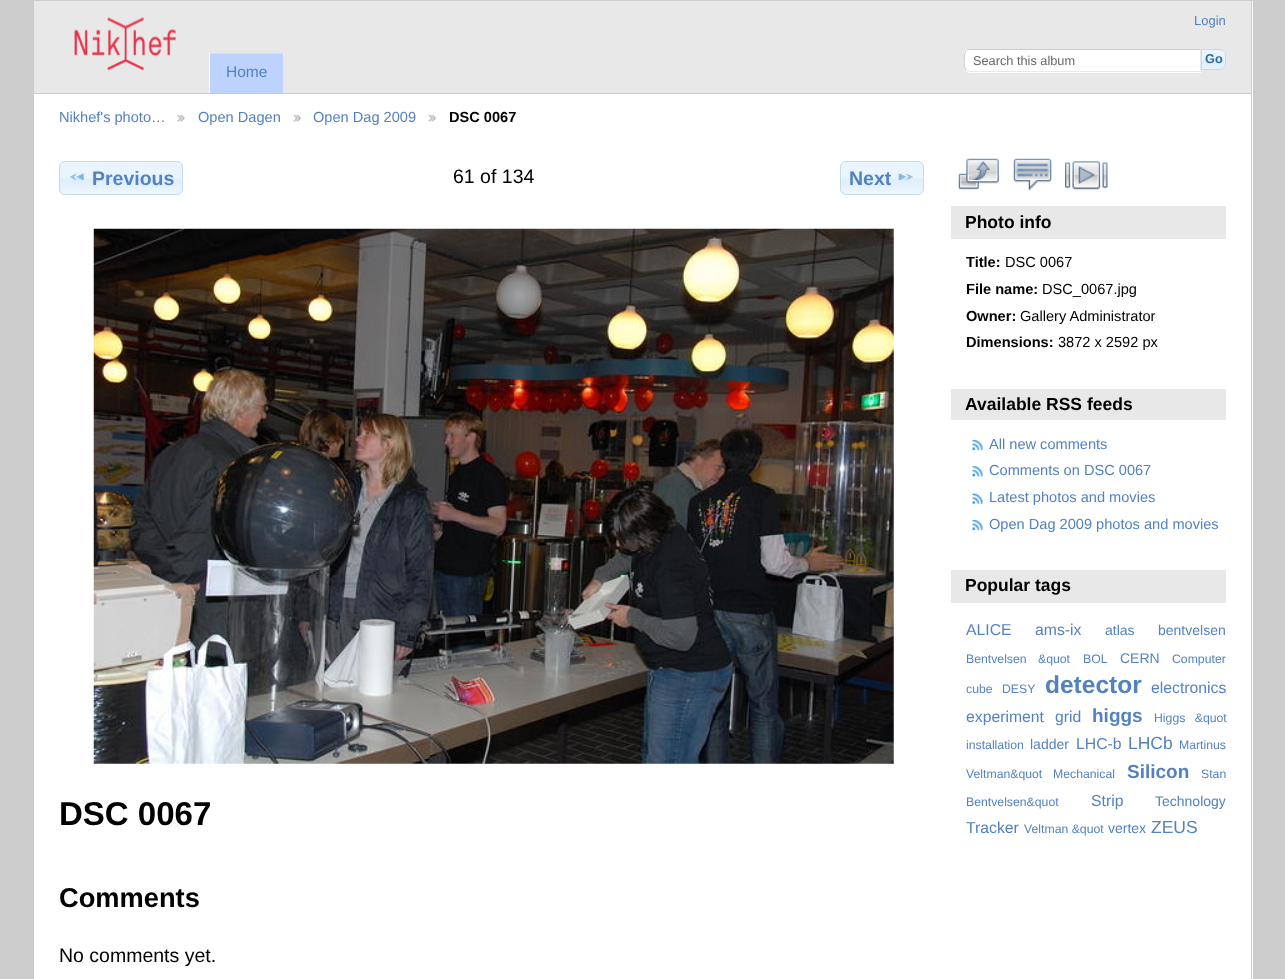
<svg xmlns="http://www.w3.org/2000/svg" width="1285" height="979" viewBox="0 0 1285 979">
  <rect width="100%" height="100%" fill="#ccc"/>
  <path d="M34 1h1219v978H34z" fill="#fff"/>
  <path d="M1251 0h1v979H1251z" fill="#ccc"/>
  <path d="M34 1h1217v92H34z" fill="#e8e8e8"/>
  <path d="M34 93h1217v1H34z" fill="#ccc"/>
  <image x="74" y="17" width="102" height="54" href="img/1.png"/>
  <path d="M970 49H1201V73H970C966.5 73 964 70.5 964 67V55C964 51.5 966.5 49 970 49Z" fill="#fff"/>
  <path d="M970 49C968 49 967 50 966 51C967 51 968 50 970 50H1200L1201 49Z" fill="#ccc"/>
  <path d="M1200 71L1201 72V49L1200 50Z" fill="#e8e8e8"/>
  <path d="M1201 72H969L966 70H967L969 71H1200Z" fill="#e8e8e8"/>
  <path d="M966 51C963.5 53.5 964 57 964 60.5C964 63.5 963 68 966 70.5L966.5 69.5L965 67C964.5 65 965 57.5 965 55C965 54 965.5 52.5 966.5 51.5Z" fill="#ccc"/>
  <image x="1202" y="49" width="24" height="21" href="img/2.png"/>
  <path d="M1201.5 49.5H1220C1223 49.5 1225.5 52 1225.5 55V64C1225.5 67 1223 69.5 1220 69.5H1201.5Z" fill="none" stroke="#c5dbec"/>
  <path d="M210 54h73v39H210z" fill="#bdd2ff"/>
  <path d="M209 53h74v1H209z" fill="#cfdeff"/>
  <path d="M209 53h1v40H209z" fill="#fff"/>
  <image x="177" y="115" width="8" height="7" href="img/3.png"/>
  <image x="293" y="115" width="9" height="7" href="img/4.png"/>
  <image x="428" y="115" width="9" height="7" href="img/4.png"/>
  <image x="59" y="161" width="123" height="34" href="img/5.png"/>
  <rect x="59.5" y="161.5" width="123" height="33" rx="5.5" fill="none" stroke="#c5dbec"/>
  <image x="69" y="173" width="15" height="8" href="img/6.png"/>
  <image x="840" y="161" width="84" height="34" href="img/7.png"/>
  <rect x="840.5" y="161.5" width="83" height="33" rx="5.5" fill="none" stroke="#c5dbec"/>
  <image x="898" y="173" width="15" height="8" href="img/8.png"/>
  <image x="93" y="228" width="801" height="536" href="img/9.png"/>
  <image x="958" y="158" width="41" height="32" href="img/10.png"/>
  <image x="1013" y="158" width="39" height="34" href="img/11.png"/>
  <image x="1065" y="161" width="43" height="29" href="img/12.png"/>
  <path d="M951 206h275v33H951z" fill="#e8e8e8"/>
  <path d="M951 389h275v31H951z" fill="#e8e8e8"/>
  <image x="972" y="439" width="11" height="12" href="img/13.png"/>
  <image x="972" y="466" width="11" height="11" href="img/14.png"/>
  <image x="972" y="493" width="11" height="11" href="img/15.png"/>
  <image x="972" y="519" width="11" height="12" href="img/13.png"/>
  <path d="M951 570h275v33H951z" fill="#e8e8e8"/>
  <text x="1194" y="25" font-family="Liberation Sans" font-size="13" fill="#5382bf">Login</text>
  <text x="973" y="65" font-family="Liberation Sans" font-size="12.75" fill="#666">Search this album</text>
  <text x="1205" y="63" font-family="Liberation Sans" font-size="12.75" font-weight="bold" fill="#2e6e9e">Go</text>
  <text x="226" y="77" font-family="Liberation Sans" font-size="15.5" fill="#5382bf">Home</text>
  <g font-family="Liberation Sans" font-size="14.6" fill="#5382bf">
    <text x="59" y="122">Nikhef's photo…</text>
    <text x="198" y="122">Open Dagen</text>
    <text x="313" y="122">Open Dag 2009</text>
  </g>
  <text x="449" y="122" font-family="Liberation Sans" font-size="14.6" font-weight="bold" fill="#000">DSC 0067</text>
  <text x="92" y="185" font-family="Liberation Sans" font-size="19.5" font-weight="bold" fill="#5382bf">Previous</text>
  <text x="453" y="183" font-family="Liberation Sans" font-size="19.5" fill="#000">61 of 134</text>
  <text x="849" y="185" font-family="Liberation Sans" font-size="19.5" font-weight="bold" fill="#5382bf">Next</text>
  <text x="59" y="825" font-family="Liberation Sans" font-size="33" font-weight="bold" fill="#000">DSC 0067</text>
  <text x="59" y="907" font-family="Liberation Sans" font-size="27.25" font-weight="bold" fill="#000">Comments</text>
  <text x="59" y="962" font-family="Liberation Sans" font-size="19.5" fill="#000">No comments yet.</text>
  <text x="965" y="228" font-family="Liberation Sans" font-size="17.5" font-weight="bold" fill="#000">Photo info</text>
  <text x="966" y="267" font-family="Liberation Sans" font-size="14.6" font-weight="bold" fill="#000">Title:</text>
  <text x="1005" y="267" font-family="Liberation Sans" font-size="14.6" fill="#000">DSC 0067</text>
  <text x="966" y="294" font-family="Liberation Sans" font-size="14.6" font-weight="bold" fill="#000">File name:</text>
  <text x="1042" y="294" font-family="Liberation Sans" font-size="14.6" fill="#000">DSC_0067.jpg</text>
  <text x="966" y="321" font-family="Liberation Sans" font-size="14.6" font-weight="bold" fill="#000">Owner:</text>
  <text x="1020" y="321" font-family="Liberation Sans" font-size="14.6" fill="#000">Gallery Administrator</text>
  <text x="966" y="347" font-family="Liberation Sans" font-size="14.6" font-weight="bold" fill="#000">Dimensions:</text>
  <text x="1058" y="347" font-family="Liberation Sans" font-size="14.6" fill="#000">3872 x 2592 px</text>
  <text x="965" y="410" font-family="Liberation Sans" font-size="17.5" font-weight="bold" fill="#000">Available RSS feeds</text>
  <g font-family="Liberation Sans" font-size="14.6" fill="#5382bf">
    <text x="989" y="449">All new comments</text>
    <text x="989" y="475">Comments on DSC 0067</text>
    <text x="989" y="502">Latest photos and movies</text>
    <text x="989" y="529">Open Dag 2009 photos and movies</text>
  </g>
  <text x="965" y="591" font-family="Liberation Sans" font-size="17.5" font-weight="bold" fill="#000">Popular tags</text>
  <g font-family="Liberation Sans" font-size="15.75" fill="#5382bf">
    <text x="966" y="635">ALICE</text>
    <text x="1035" y="635">ams-ix</text>
  </g>
  <g font-family="Liberation Sans" font-size="14" fill="#5382bf">
    <text x="1105" y="635">atlas</text>
    <text x="1158" y="635">bentvelsen</text>
  </g>
  <g font-family="Liberation Sans" font-size="12.25" fill="#5382bf">
    <text x="966" y="663" word-spacing="8">Bentvelsen &amp;quot</text>
    <text x="1083" y="663">BOL</text>
  </g>
  <text x="1120" y="663" font-family="Liberation Sans" font-size="14" fill="#5382bf">CERN</text>
  <g font-family="Liberation Sans" font-size="12.25" fill="#5382bf">
    <text x="1172" y="663">Computer</text>
    <text x="966" y="693">cube</text>
    <text x="1002" y="693">DESY</text>
  </g>
  <text x="1045" y="693" font-family="Liberation Sans" font-size="24.5" font-weight="bold" fill="#5382bf">detector</text>
  <g font-family="Liberation Sans" font-size="15.75" fill="#5382bf">
    <text x="1151" y="693">electronics</text>
    <text x="966" y="722">experiment</text>
    <text x="1055" y="722">grid</text>
  </g>
  <text x="1092" y="722" font-family="Liberation Sans" font-size="19" font-weight="bold" fill="#5382bf">higgs</text>
  <g font-family="Liberation Sans" font-size="12.25" fill="#5382bf">
    <text x="1154" y="722" word-spacing="6">Higgs &amp;quot</text>
    <text x="966" y="749">installation</text>
  </g>
  <text x="1030" y="749" font-family="Liberation Sans" font-size="14" fill="#5382bf">ladder</text>
  <text x="1076" y="749" font-family="Liberation Sans" font-size="15.75" fill="#5382bf">LHC-b</text>
  <text x="1128" y="749" font-family="Liberation Sans" font-size="17.5" fill="#5382bf">LHCb</text>
  <g font-family="Liberation Sans" font-size="12.25" fill="#5382bf">
    <text x="1179" y="749">Martinus</text>
    <text x="966" y="778">Veltman&amp;quot</text>
    <text x="1053" y="778">Mechanical</text>
  </g>
  <text x="1127" y="778" font-family="Liberation Sans" font-size="19" font-weight="bold" fill="#5382bf">Silicon</text>
  <g font-family="Liberation Sans" font-size="12.25" fill="#5382bf">
    <text x="1201" y="778">Stan</text>
    <text x="966" y="806">Bentvelsen&amp;quot</text>
  </g>
  <text x="1091" y="806" font-family="Liberation Sans" font-size="15.75" fill="#5382bf">Strip</text>
  <text x="1155" y="806" font-family="Liberation Sans" font-size="14" fill="#5382bf">Technology</text>
  <text x="966" y="833" font-family="Liberation Sans" font-size="15.75" fill="#5382bf">Tracker</text>
  <text x="1024" y="833" font-family="Liberation Sans" font-size="12.25" fill="#5382bf">Veltman &amp;quot</text>
  <text x="1108" y="833" font-family="Liberation Sans" font-size="14" fill="#5382bf">vertex</text>
  <text x="1151" y="833" font-family="Liberation Sans" font-size="17.5" fill="#5382bf">ZEUS</text>
</svg>
